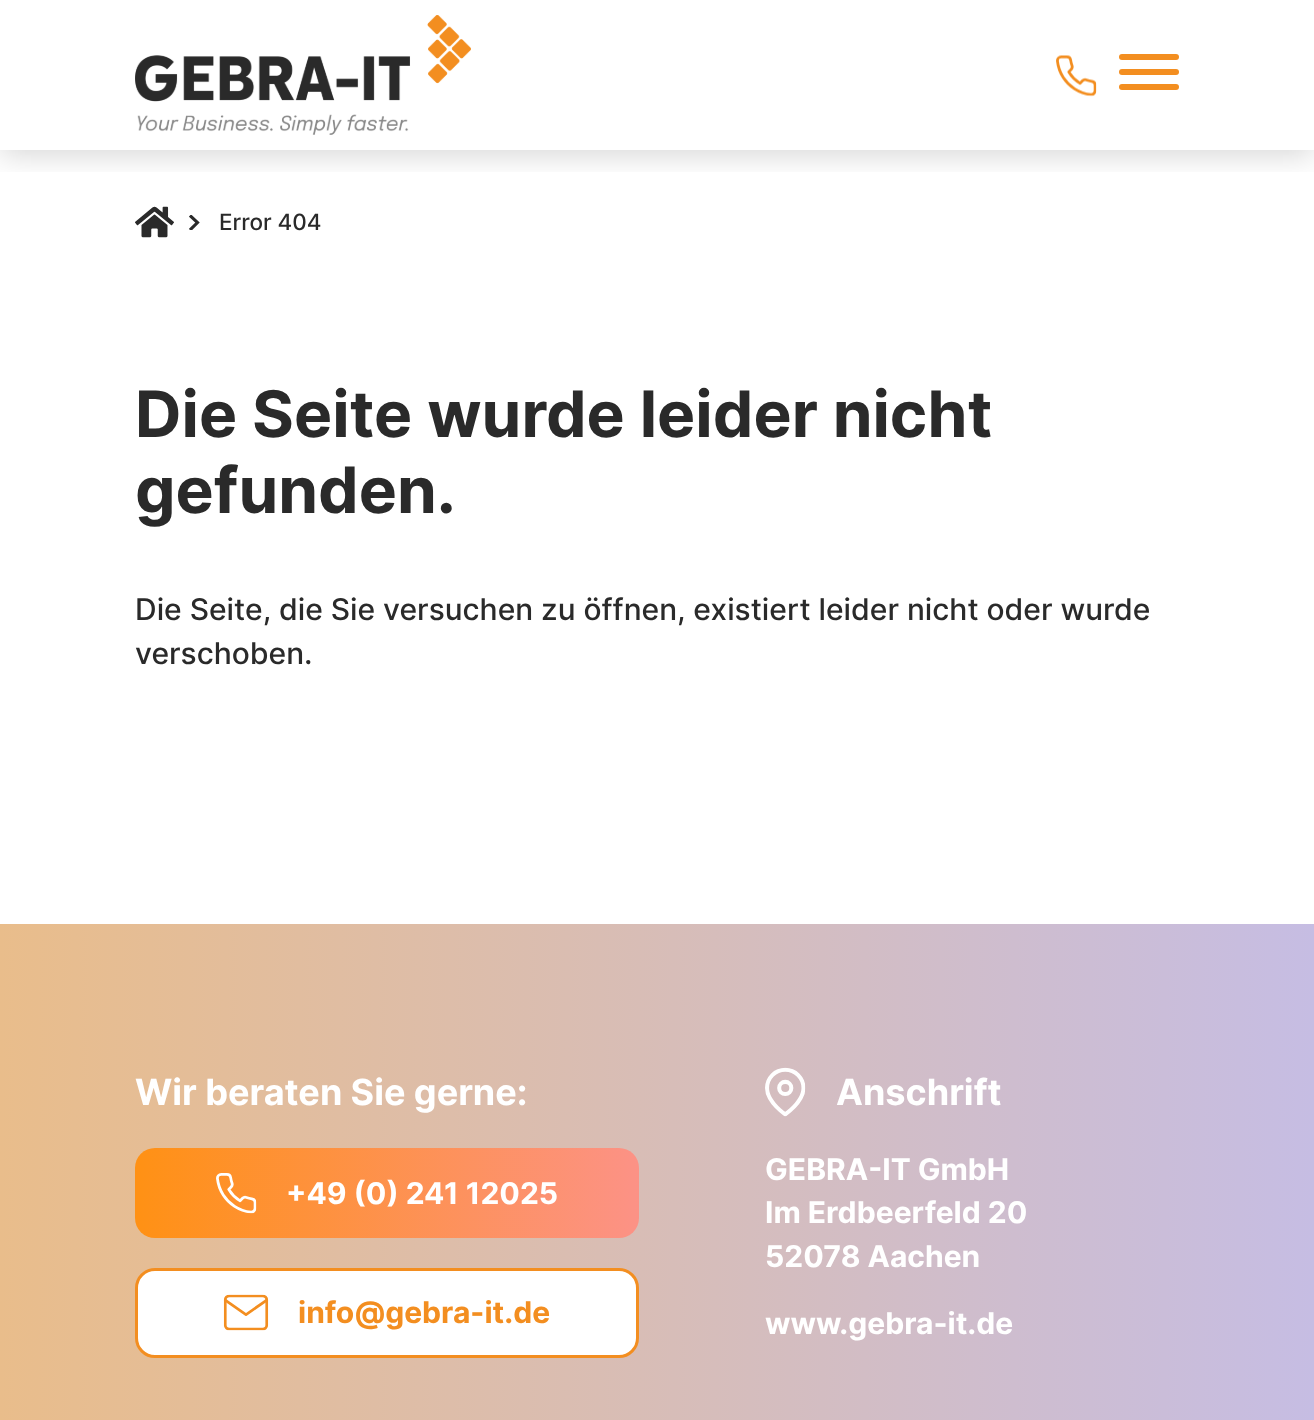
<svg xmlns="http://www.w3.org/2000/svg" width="1314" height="1420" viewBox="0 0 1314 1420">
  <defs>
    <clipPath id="clip1"><path d="M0 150h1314v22H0z"/></clipPath>
    <clipPath id="clip2"><path d="M189 215h11v15H189z"/></clipPath>
    <linearGradient id="g1" gradientUnits="userSpaceOnUse" x1="1314" y1="1362" x2="0" y2="1362"><stop offset="0" stop-color="#c6bde3"/><stop offset="1" stop-color="#e9bd8b"/></linearGradient>
    <linearGradient id="g2" gradientUnits="userSpaceOnUse" x1="135" y1="1193" x2="639" y2="1193"><stop offset="0" stop-color="#ff9114"/><stop offset="1" stop-color="#fc9286"/></linearGradient>
  </defs>
  <rect width="100%" height="100%" fill="#fff"/>
  <g clip-path="url(#clip1)">
    <path d="M0 5h1314v150H0z" fill="#00000029" filter="blur(15px)"/>
  </g>
  <image x="135" y="15" width="336" height="120" href="img/1.png"/>
  <image x="1056" y="55" width="41" height="42" href="img/2.png"/>
  <rect x="1119" y="84" width="60" height="6" rx="3" fill="#f38e20"/>
  <rect x="1119" y="54" width="60" height="6" rx="3" fill="#f38e20"/>
  <rect x="1119" y="69" width="60" height="6" rx="3" fill="#f38e20"/>
  <image x="135" y="206" width="39" height="32" href="img/3.png"/>
  <g clip-path="url(#clip2)">
    <path d="M190 215.5L197.5 222.5L190 230" fill="none" stroke="#2a2a2a" stroke-width="3.1"/>
  </g>
  <path d="M0 924h1314v496H0z" fill="url(#g1)"/>
  <rect x="135" y="1148" width="504" height="90" rx="20" fill="url(#g2)"/>
  <image x="216" y="1173" width="41" height="41" href="img/4.png"/>
  <rect x="136.5" y="1269.5" width="501" height="87" rx="18.5" fill="#fff" stroke="#f38e20" stroke-width="3"/>
  <image x="223" y="1294" width="46" height="37" href="img/5.png"/>
  <image x="765" y="1067" width="41" height="50" href="img/6.png"/>
  <text x="219" y="230" font-family="Inter" font-size="22.5" font-weight="500" fill="#2a2a2a">Error 404</text>
  <g font-family="Inter" font-size="64" font-weight="bold" fill="#2a2a2a">
    <text x="135" y="437">Die Seite wurde leider nicht</text>
    <text x="135" y="513">gefunden.</text>
  </g>
  <g font-family="Inter" font-size="30" font-weight="500" fill="#2a2a2a">
    <text x="135" y="620">Die Seite, die Sie versuchen zu öffnen, existiert leider nicht oder wurde</text>
    <text x="135" y="664">verschoben.</text>
  </g>
  <text x="135" y="1105" font-family="Inter" font-size="36" font-weight="bold" fill="#fff">Wir beraten Sie gerne:</text>
  <text x="286" y="1204" font-family="Inter" font-size="30" font-weight="bold" fill="#fff">+49 (0) 241 12025</text>
  <text x="298" y="1323" font-family="Inter" font-size="30" font-weight="bold" fill="#f38e20">info@gebra-it.de</text>
  <text x="836" y="1105" font-family="Inter" font-size="36" font-weight="bold" fill="#fff">Anschrift</text>
  <g font-family="Inter" font-size="30" font-weight="bold" fill="#fff">
    <text x="765" y="1180">GEBRA-IT GmbH</text>
    <text x="765" y="1223">Im Erdbeerfeld 20</text>
    <text x="765" y="1267">52078 Aachen</text>
    <text x="765" y="1334">www.gebra-it.de</text>
  </g>
</svg>
